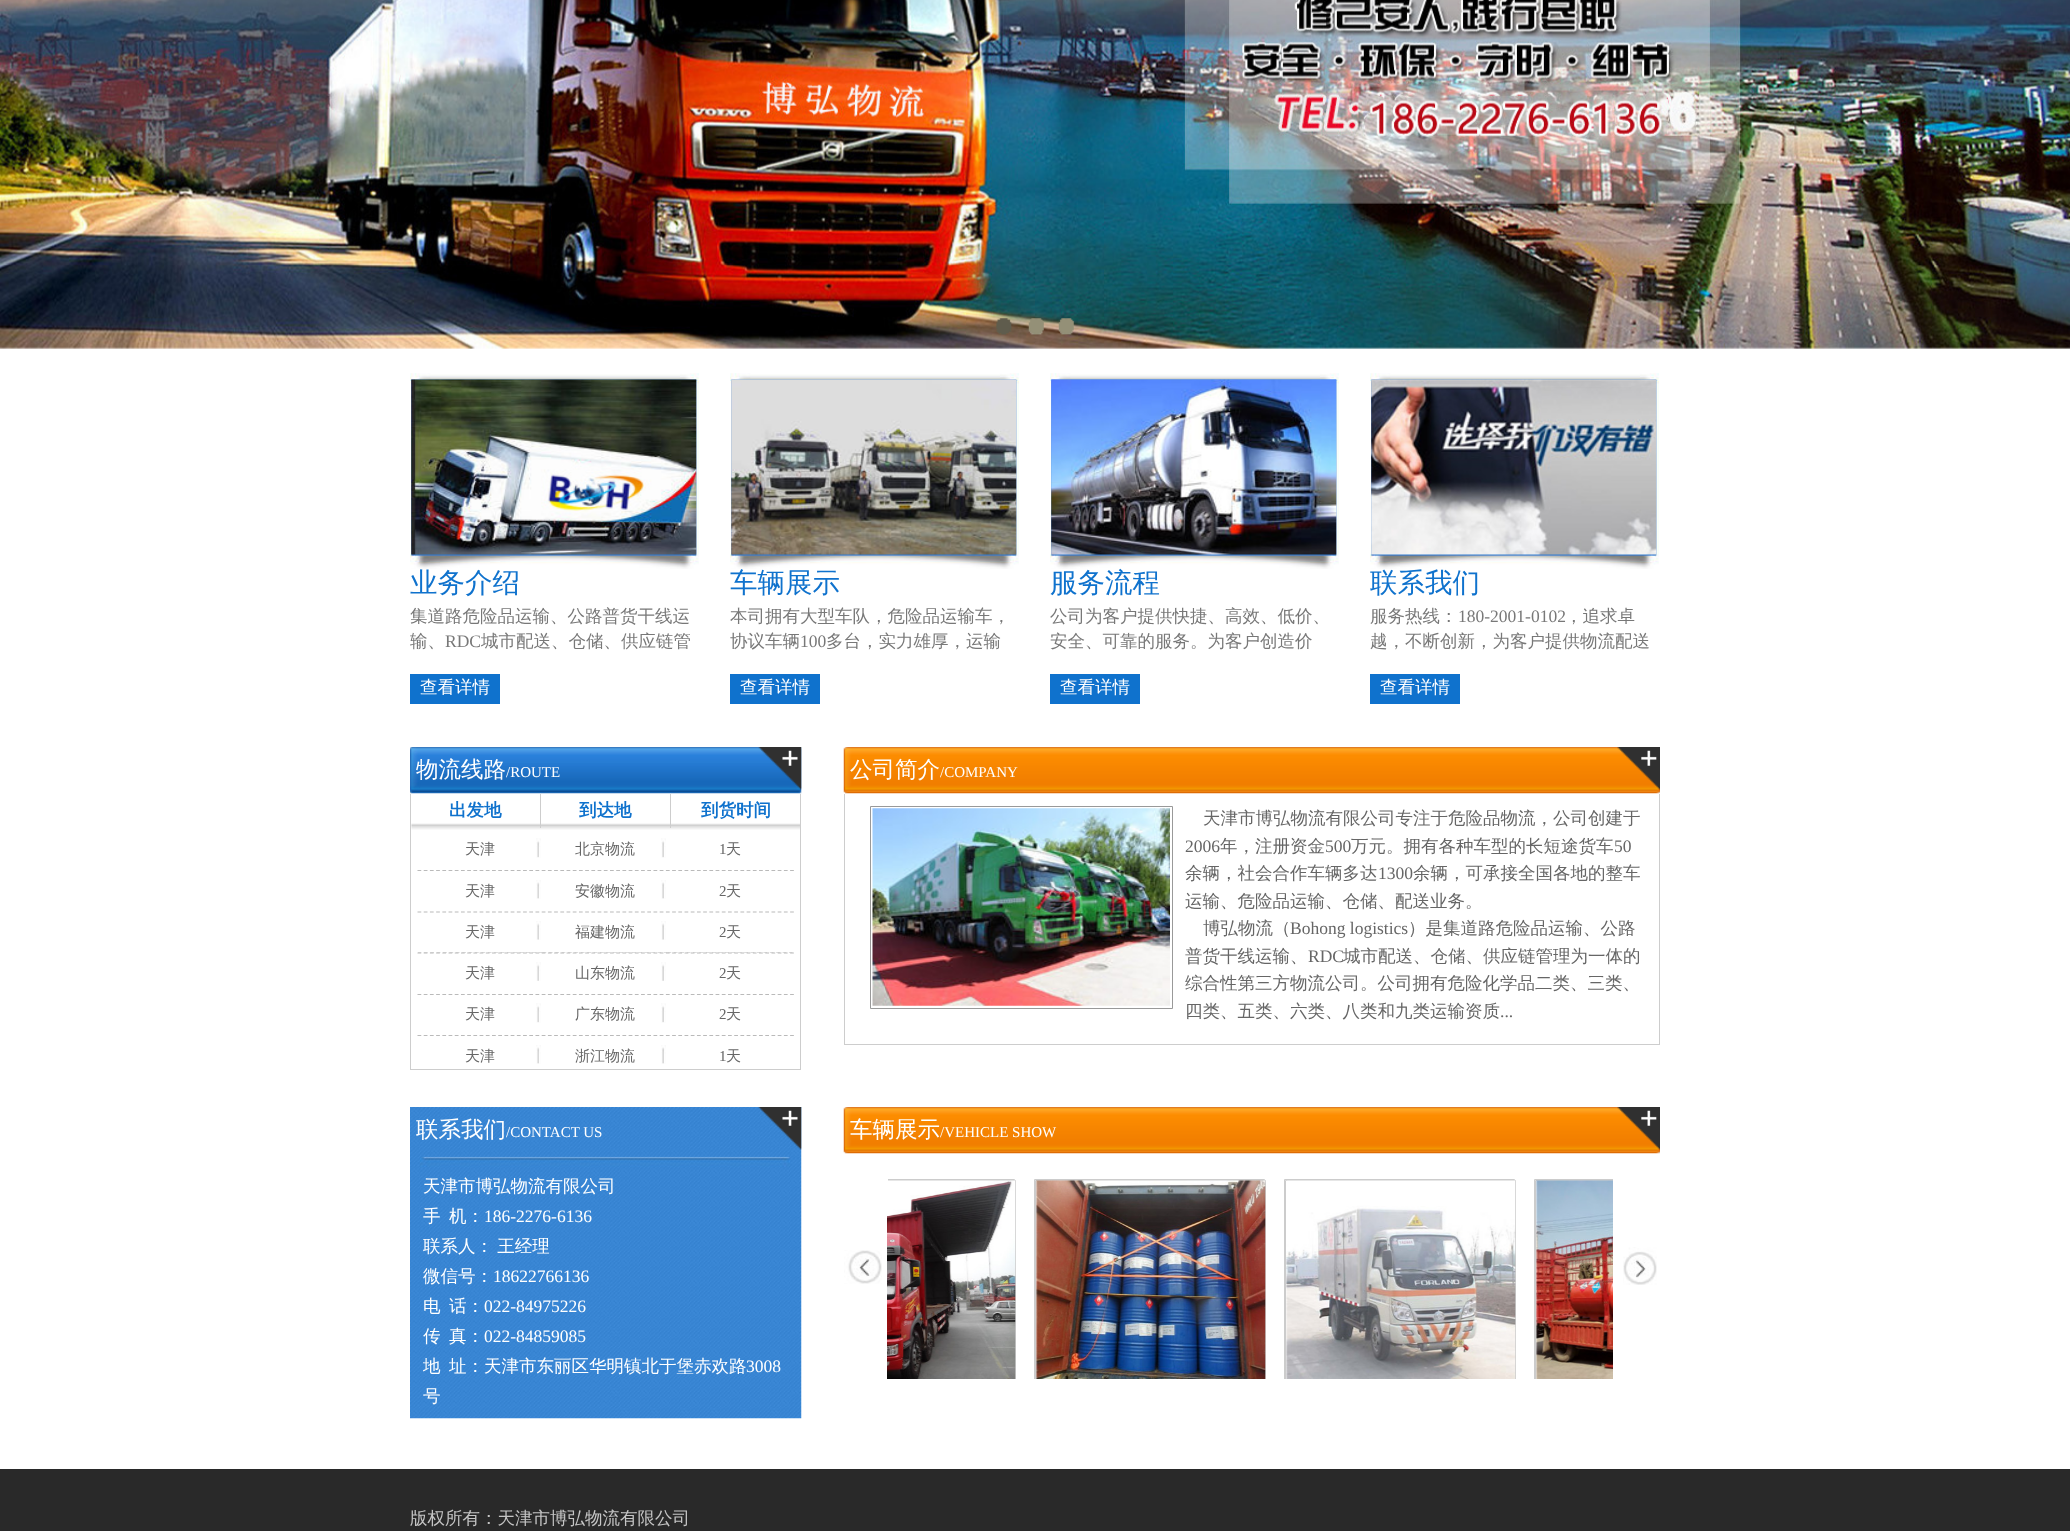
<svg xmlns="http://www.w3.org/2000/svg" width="2070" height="1531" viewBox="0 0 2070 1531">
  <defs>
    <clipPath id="clip1"><path d="M418 830h376v40H418z"/></clipPath>
    <clipPath id="clip2"><path d="M418 913h376v40H418z"/></clipPath>
    <clipPath id="clip3"><path d="M418 954h376v40H418z"/></clipPath>
    <clipPath id="clip4"><path d="M418 995h376v40H418z"/></clipPath>
    <clipPath id="clip5"><path d="M888 1179h146v200H888z"/></clipPath>
    <clipPath id="clip6"><path d="M1034 1179h250v200H1034z"/></clipPath>
    <clipPath id="clip7"><path d="M1284 1179h250v200H1284z"/></clipPath>
    <clipPath id="clip8"><path d="M1534 1179h79v200H1534z"/></clipPath>
  </defs>
  <rect width="100%" height="100%" fill="#fff"/>
  <image x="0" y="0" width="2070" height="349" href="img/1.png"/>
  <image x="996" y="318" width="16" height="17" href="img/2.png"/>
  <image x="1028" y="318" width="16" height="17" href="img/3.png"/>
  <image x="1058" y="318" width="16" height="17" href="img/4.png"/>
  <image x="410" y="373" width="289" height="196" href="img/5.png"/>
  <image x="411" y="379" width="286" height="176" href="img/6.png"/>
  <path d="M410 674h90v30H410z" fill="#0f72cd"/>
  <image x="730" y="373" width="289" height="196" href="img/7.png"/>
  <image x="731" y="379" width="286" height="176" href="img/8.png"/>
  <path d="M730 674h90v30H730z" fill="#0f72cd"/>
  <image x="1050" y="373" width="289" height="196" href="img/9.png"/>
  <image x="1051" y="379" width="286" height="176" href="img/10.png"/>
  <path d="M1050 674h90v30H1050z" fill="#0f72cd"/>
  <image x="1370" y="373" width="289" height="196" href="img/11.png"/>
  <image x="1371" y="379" width="286" height="176" href="img/12.png"/>
  <path d="M1370 674h90v30H1370z" fill="#0f72cd"/>
  <image x="410" y="747" width="392" height="47" href="img/13.png"/>
  <image x="758" y="747" width="44" height="43" href="img/14.png"/>
  <path d="M800 794h1v276H800z" fill="#cdcdcd"/>
  <path d="M410 1069h391v1H410z" fill="#cdcdcd"/>
  <path d="M410 794h1v276H410z" fill="#cdcdcd"/>
  <image x="411" y="823" width="389" height="7" href="img/15.png"/>
  <path d="M540 794h1v34H540z" fill="#cdcdcd"/>
  <path d="M670 794h1v34H670z" fill="#cdcdcd"/>
  <path d="M417.5 870.5H794" fill="none" stroke="#bababa" stroke-width="1.2" stroke-dasharray="3.75 2.46"/>
  <image x="536" y="838" width="5" height="20" href="img/16.png"/>
  <g clip-path="url(#clip1)">
    <path d="M417.5 870.5H542.5" fill="none" stroke="#bababa" stroke-width="1.2" stroke-dasharray="3.75 2.64"/>
  </g>
  <image x="661" y="838" width="5" height="20" href="img/17.png"/>
  <g clip-path="url(#clip1)">
    <path d="M542.5 870.5H667.5" fill="none" stroke="#bababa" stroke-width="1.2" stroke-dasharray="3.75 2.64"/>
    <path d="M667.5 870.5H792.5" fill="none" stroke="#bababa" stroke-width="1.2" stroke-dasharray="3.75 2.64"/>
  </g>
  <path d="M417.5 912H794" fill="none" stroke="#bababa" stroke-width="1.2" stroke-dasharray="3.75 2.46"/>
  <image x="536" y="880" width="5" height="19" href="img/18.png"/>
  <image x="661" y="880" width="5" height="19" href="img/19.png"/>
  <path d="M417.5 953H794" fill="none" stroke="#bababa" stroke-width="1.2" stroke-dasharray="3.75 2.46"/>
  <image x="536" y="921" width="5" height="19" href="img/20.png"/>
  <g clip-path="url(#clip2)">
    <path d="M417.5 953H542.5" fill="none" stroke="#bababa" stroke-width="1.2" stroke-dasharray="3.75 2.64"/>
  </g>
  <image x="661" y="921" width="5" height="19" href="img/21.png"/>
  <g clip-path="url(#clip2)">
    <path d="M542.5 953H667.5" fill="none" stroke="#bababa" stroke-width="1.2" stroke-dasharray="3.75 2.64"/>
    <path d="M667.5 953H792.5" fill="none" stroke="#bababa" stroke-width="1.2" stroke-dasharray="3.75 2.64"/>
  </g>
  <path d="M417.5 994.5H794" fill="none" stroke="#bababa" stroke-width="1.2" stroke-dasharray="3.75 2.46"/>
  <image x="536" y="962" width="5" height="19" href="img/22.png"/>
  <g clip-path="url(#clip3)">
    <path d="M417.5 994.5H542.5" fill="none" stroke="#bababa" stroke-width="1.2" stroke-dasharray="3.75 2.64"/>
  </g>
  <image x="661" y="962" width="5" height="19" href="img/23.png"/>
  <g clip-path="url(#clip3)">
    <path d="M542.5 994.5H667.5" fill="none" stroke="#bababa" stroke-width="1.2" stroke-dasharray="3.75 2.64"/>
    <path d="M667.5 994.5H792.5" fill="none" stroke="#bababa" stroke-width="1.2" stroke-dasharray="3.75 2.64"/>
  </g>
  <path d="M417.5 1035.5H794" fill="none" stroke="#bababa" stroke-width="1.2" stroke-dasharray="3.75 2.46"/>
  <image x="536" y="1003" width="5" height="20" href="img/16.png"/>
  <g clip-path="url(#clip4)">
    <path d="M417.5 1035.5H542.5" fill="none" stroke="#bababa" stroke-width="1.2" stroke-dasharray="3.75 2.64"/>
  </g>
  <image x="661" y="1003" width="5" height="20" href="img/17.png"/>
  <g clip-path="url(#clip4)">
    <path d="M542.5 1035.5H667.5" fill="none" stroke="#bababa" stroke-width="1.2" stroke-dasharray="3.75 2.64"/>
    <path d="M667.5 1035.5H792.5" fill="none" stroke="#bababa" stroke-width="1.2" stroke-dasharray="3.75 2.64"/>
  </g>
  <image x="536" y="1045" width="5" height="19" href="img/18.png"/>
  <image x="661" y="1045" width="5" height="19" href="img/19.png"/>
  <image x="843" y="747" width="817" height="47" href="img/24.png"/>
  <image x="1617" y="747" width="43" height="43" href="img/25.png"/>
  <path d="M1659 794h1v251H1659z" fill="#cdcdcd"/>
  <path d="M844 1044h816v1H844z" fill="#cdcdcd"/>
  <path d="M844 794h1v251H844z" fill="#cdcdcd"/>
  <path d="M870.5 806.5h302v202H870.5z" fill="none" stroke="#999"/>
  <image x="872" y="808" width="298" height="198" href="img/26.png"/>
  <image x="410" y="1107" width="392" height="312" href="img/27.png"/>
  <image x="758" y="1107" width="44" height="43" href="img/28.png"/>
  <image x="843" y="1107" width="817" height="47" href="img/29.png"/>
  <image x="1617" y="1107" width="43" height="43" href="img/30.png"/>
  <image x="844" y="1250" width="38" height="34" href="img/35.png"/>
  <g clip-path="url(#clip5)">
    <path d="M784.5 1179.5h230v204H784.5z" fill="none" stroke="#ccc"/>
    <path d="M785.5 1180.5h230v204H785.5z" fill="none" stroke="#ccc"/>
  </g>
  <image x="887" y="1180" width="129" height="199" href="img/31.png"/>
  <g clip-path="url(#clip6)">
    <path d="M1034.5 1179.5h230v204H1034.5z" fill="none" stroke="#ccc"/>
    <path d="M1035.5 1180.5h230v204H1035.5z" fill="none" stroke="#ccc"/>
  </g>
  <image x="1036" y="1180" width="230" height="199" href="img/32.png"/>
  <g clip-path="url(#clip7)">
    <path d="M1284.5 1179.5h230v204H1284.5z" fill="none" stroke="#ccc"/>
    <path d="M1285.5 1180.5h230v204H1285.5z" fill="none" stroke="#ccc"/>
  </g>
  <image x="1286" y="1180" width="230" height="199" href="img/33.png"/>
  <image x="1623" y="1247" width="34" height="38" href="img/36.png"/>
  <g clip-path="url(#clip8)">
    <path d="M1534.5 1179.5h230v204H1534.5z" fill="none" stroke="#ccc"/>
    <path d="M1535.5 1180.5h230v204H1535.5z" fill="none" stroke="#ccc"/>
  </g>
  <image x="1536" y="1180" width="77" height="199" href="img/34.png"/>
  <path d="M0 1469h2070v62H0z" fill="#292929"/>
  <text x="410" y="592" font-family="WenQuanYi Zen Hei" font-size="27.5" font-weight="500" fill="#0f72cd">业务介绍</text>
  <g font-family="WenQuanYi Zen Hei" font-size="17.5" font-weight="500" fill="#787878">
    <text x="410" y="622">集道路危险品运输、公路普货干线运</text>
    <text x="410" y="647">输、</text>
  </g>
  <text x="445" y="647" font-family="Liberation Serif" font-size="17.5" fill="#787878">RDC</text>
  <text x="481" y="647" font-family="WenQuanYi Zen Hei" font-size="17.5" font-weight="500" fill="#787878">城市配送、仓储、供应链管</text>
  <text x="420" y="693" font-family="WenQuanYi Zen Hei" font-size="17.5" font-weight="500" fill="#fff">查看详情</text>
  <text x="730" y="592" font-family="WenQuanYi Zen Hei" font-size="27.5" font-weight="500" fill="#0f72cd">车辆展示</text>
  <g font-family="WenQuanYi Zen Hei" font-size="17.5" font-weight="500" fill="#787878">
    <text x="730" y="622">本司拥有大型车队，危险品运输车，</text>
    <text x="730" y="647">协议车辆</text>
  </g>
  <text x="800" y="647" font-family="Liberation Serif" font-size="17.5" fill="#787878">100</text>
  <text x="826" y="647" font-family="WenQuanYi Zen Hei" font-size="17.5" font-weight="500" fill="#787878">多台，实力雄厚，运输</text>
  <text x="740" y="693" font-family="WenQuanYi Zen Hei" font-size="17.5" font-weight="500" fill="#fff">查看详情</text>
  <text x="1050" y="592" font-family="WenQuanYi Zen Hei" font-size="27.5" font-weight="500" fill="#0f72cd">服务流程</text>
  <g font-family="WenQuanYi Zen Hei" font-size="17.5" font-weight="500" fill="#787878">
    <text x="1050" y="622">公司为客户提供快捷、高效、低价、</text>
    <text x="1050" y="647">安全、可靠的服务。为客户创造价</text>
  </g>
  <text x="1060" y="693" font-family="WenQuanYi Zen Hei" font-size="17.5" font-weight="500" fill="#fff">查看详情</text>
  <text x="1370" y="592" font-family="WenQuanYi Zen Hei" font-size="27.5" font-weight="500" fill="#0f72cd">联系我们</text>
  <text x="1370" y="622" font-family="WenQuanYi Zen Hei" font-size="17.5" font-weight="500" fill="#787878">服务热线：</text>
  <text x="1458" y="622" font-family="Liberation Serif" font-size="17.5" fill="#787878">180-2001-0102</text>
  <g font-family="WenQuanYi Zen Hei" font-size="17.5" font-weight="500" fill="#787878">
    <text x="1565" y="622">，追求卓</text>
    <text x="1370" y="647">越，不断创新，为客户提供物流配送</text>
  </g>
  <text x="1380" y="693" font-family="WenQuanYi Zen Hei" font-size="17.5" font-weight="500" fill="#fff">查看详情</text>
  <text x="416" y="777" font-family="WenQuanYi Zen Hei" font-size="22.5" font-weight="500" fill="#fff">物流线路</text>
  <text x="506" y="777" font-family="Liberation Serif" font-size="15" fill="#fff">/ROUTE</text>
  <g font-family="WenQuanYi Zen Hei" font-size="17.5" font-weight="bold" fill="#0f72cd">
    <text x="449" y="816">出发地</text>
    <text x="579" y="816">到达地</text>
    <text x="701" y="816">到货时间</text>
  </g>
  <g font-family="WenQuanYi Zen Hei" font-size="15" font-weight="500" fill="#666">
    <text x="465" y="854">天津</text>
    <text x="575" y="854">北京物流</text>
  </g>
  <text x="719" y="854" font-family="Liberation Serif" font-size="15" fill="#666">1</text>
  <g font-family="WenQuanYi Zen Hei" font-size="15" font-weight="500" fill="#666">
    <text x="726" y="854">天</text>
    <text x="465" y="896">天津</text>
    <text x="575" y="896">安徽物流</text>
  </g>
  <text x="719" y="896" font-family="Liberation Serif" font-size="15" fill="#666">2</text>
  <g font-family="WenQuanYi Zen Hei" font-size="15" font-weight="500" fill="#666">
    <text x="726" y="896">天</text>
    <text x="465" y="937">天津</text>
    <text x="575" y="937">福建物流</text>
  </g>
  <text x="719" y="937" font-family="Liberation Serif" font-size="15" fill="#666">2</text>
  <g font-family="WenQuanYi Zen Hei" font-size="15" font-weight="500" fill="#666">
    <text x="726" y="937">天</text>
    <text x="465" y="978">天津</text>
    <text x="575" y="978">山东物流</text>
  </g>
  <text x="719" y="978" font-family="Liberation Serif" font-size="15" fill="#666">2</text>
  <g font-family="WenQuanYi Zen Hei" font-size="15" font-weight="500" fill="#666">
    <text x="726" y="978">天</text>
    <text x="465" y="1019">天津</text>
    <text x="575" y="1019">广东物流</text>
  </g>
  <text x="719" y="1019" font-family="Liberation Serif" font-size="15" fill="#666">2</text>
  <g font-family="WenQuanYi Zen Hei" font-size="15" font-weight="500" fill="#666">
    <text x="726" y="1019">天</text>
    <text x="465" y="1061">天津</text>
    <text x="575" y="1061">浙江物流</text>
  </g>
  <text x="719" y="1061" font-family="Liberation Serif" font-size="15" fill="#666">1</text>
  <text x="726" y="1061" font-family="WenQuanYi Zen Hei" font-size="15" font-weight="500" fill="#666">天</text>
  <text x="850" y="777" font-family="WenQuanYi Zen Hei" font-size="22.5" font-weight="500" fill="#fff">公司简介</text>
  <text x="940" y="777" font-family="Liberation Serif" font-size="15" fill="#fff">/COMPANY</text>
  <text x="1203" y="824" font-family="WenQuanYi Zen Hei" font-size="17.5" font-weight="500" fill="#666">天津市博弘物流有限公司专注于危险品物流，公司创建于</text>
  <text x="1185" y="852" font-family="Liberation Serif" font-size="17.5" fill="#666">2006</text>
  <text x="1220" y="852" font-family="WenQuanYi Zen Hei" font-size="17.5" font-weight="500" fill="#666">年，注册资金</text>
  <text x="1325" y="852" font-family="Liberation Serif" font-size="17.5" fill="#666">500</text>
  <text x="1351" y="852" font-family="WenQuanYi Zen Hei" font-size="17.5" font-weight="500" fill="#666">万元。拥有各种车型的长短途货车</text>
  <text x="1614" y="852" font-family="Liberation Serif" font-size="17.5" fill="#666">50</text>
  <text x="1185" y="879" font-family="WenQuanYi Zen Hei" font-size="17.5" font-weight="500" fill="#666">余辆，社会合作车辆多达</text>
  <text x="1378" y="879" font-family="Liberation Serif" font-size="17.5" fill="#666">1300</text>
  <g font-family="WenQuanYi Zen Hei" font-size="17.5" font-weight="500" fill="#666">
    <text x="1413" y="879">余辆，可承接全国各地的整车</text>
    <text x="1185" y="907">运输、危险品运输、仓储、配送业务。</text>
    <text x="1203" y="934">博弘物流（</text>
  </g>
  <text x="1290" y="934" font-family="Liberation Serif" font-size="17.5" fill="#666">Bohong logistics</text>
  <g font-family="WenQuanYi Zen Hei" font-size="17.5" font-weight="500" fill="#666">
    <text x="1408" y="934">）是集道路危险品运输、公路</text>
    <text x="1185" y="962">普货干线运输、</text>
  </g>
  <text x="1308" y="962" font-family="Liberation Serif" font-size="17.5" fill="#666">RDC</text>
  <g font-family="WenQuanYi Zen Hei" font-size="17.5" font-weight="500" fill="#666">
    <text x="1343" y="962">城市配送、仓储、供应链管理为一体的</text>
    <text x="1185" y="989">综合性第三方物流公司。公司拥有危险化学品二类、三类、</text>
    <text x="1185" y="1017">四类、五类、六类、八类和九类运输资质</text>
  </g>
  <text x="1500" y="1017" font-family="Liberation Serif" font-size="17.5" fill="#666">...</text>
  <text x="416" y="1137" font-family="WenQuanYi Zen Hei" font-size="22.5" font-weight="500" fill="#fff">联系我们</text>
  <text x="506" y="1137" font-family="Liberation Serif" font-size="15" fill="#fff">/CONTACT US</text>
  <g font-family="WenQuanYi Zen Hei" font-size="17.5" font-weight="500" fill="#fff">
    <text x="423" y="1192">天津市博弘物流有限公司</text>
    <text x="423" y="1222">手</text>
    <text x="449" y="1222">机：</text>
  </g>
  <text x="484" y="1222" font-family="Liberation Serif" font-size="17.5" fill="#fff">186-2276-6136</text>
  <g font-family="WenQuanYi Zen Hei" font-size="17.5" font-weight="500" fill="#fff">
    <text x="423" y="1252" word-spacing="-1">联系人： 王经理</text>
    <text x="423" y="1282">微信号：</text>
  </g>
  <text x="493" y="1282" font-family="Liberation Serif" font-size="17.5" fill="#fff">18622766136</text>
  <g font-family="WenQuanYi Zen Hei" font-size="17.5" font-weight="500" fill="#fff">
    <text x="423" y="1312">电</text>
    <text x="449" y="1312">话：</text>
  </g>
  <text x="484" y="1312" font-family="Liberation Serif" font-size="17.5" fill="#fff">022-84975226</text>
  <g font-family="WenQuanYi Zen Hei" font-size="17.5" font-weight="500" fill="#fff">
    <text x="423" y="1342">传</text>
    <text x="449" y="1342">真：</text>
  </g>
  <text x="484" y="1342" font-family="Liberation Serif" font-size="17.5" fill="#fff">022-84859085</text>
  <g font-family="WenQuanYi Zen Hei" font-size="17.5" font-weight="500" fill="#fff">
    <text x="423" y="1372">地</text>
    <text x="449" y="1372">址：天津市东丽区华明镇北于堡赤欢路</text>
  </g>
  <text x="746" y="1372" font-family="Liberation Serif" font-size="17.5" fill="#fff">3008</text>
  <text x="423" y="1402" font-family="WenQuanYi Zen Hei" font-size="17.5" font-weight="500" fill="#fff">号</text>
  <text x="850" y="1137" font-family="WenQuanYi Zen Hei" font-size="22.5" font-weight="500" fill="#fff">车辆展示</text>
  <text x="940" y="1137" font-family="Liberation Serif" font-size="15" fill="#fff">/VEHICLE SHOW</text>
  <text x="410" y="1524" font-family="WenQuanYi Zen Hei" font-size="17.5" font-weight="500" fill="#c5c5c5">版权所有：天津市博弘物流有限公司</text>
</svg>
